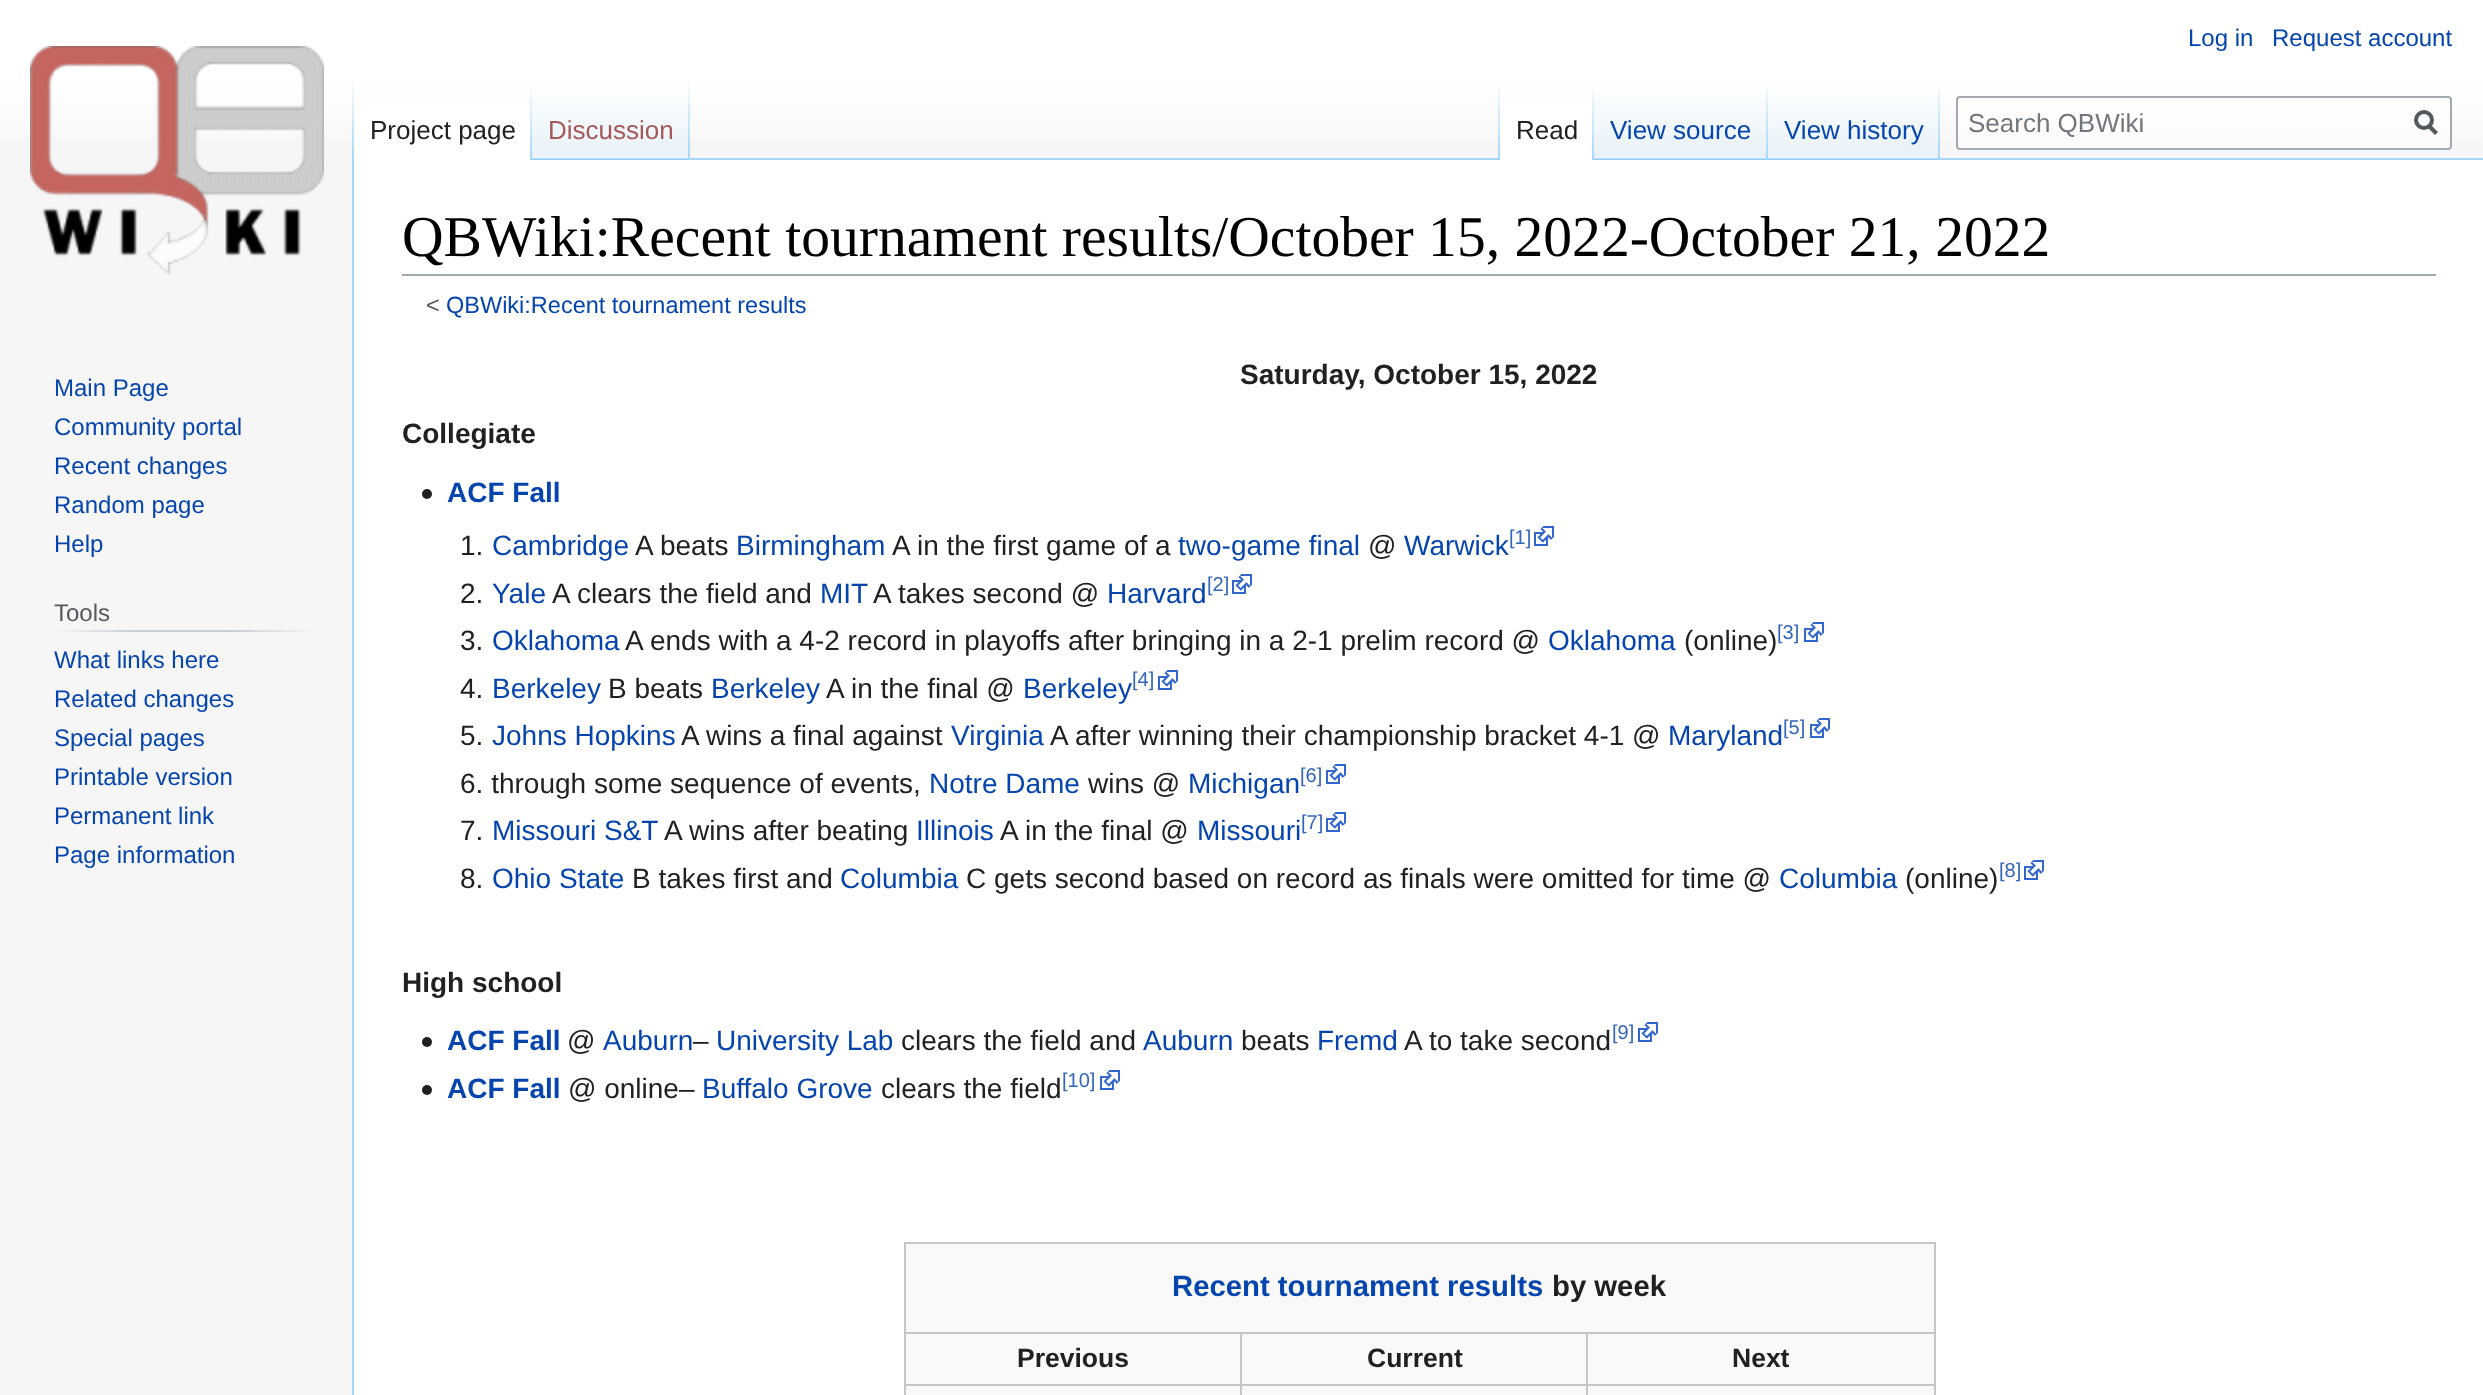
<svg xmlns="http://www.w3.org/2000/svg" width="2483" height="1395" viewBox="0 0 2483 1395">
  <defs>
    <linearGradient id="g1" gradientUnits="userSpaceOnUse" x1="1242" y1="0" x2="1242" y2="160"><stop offset="0.5" stop-color="#fff"/><stop offset="1" stop-color="#f6f6f6"/></linearGradient>
    <linearGradient id="g2" gradientUnits="userSpaceOnUse" x1="353" y1="80" x2="353" y2="160"><stop offset="0" stop-color="#a7d7f9" stop-opacity="0"/><stop offset="1" stop-color="#a7d7f9"/></linearGradient>
    <linearGradient id="g3" gradientUnits="userSpaceOnUse" x1="531" y1="80" x2="531" y2="160"><stop offset="0" stop-color="#fff"/><stop offset="1" stop-color="#a7d7f9"/></linearGradient>
    <linearGradient id="g4" gradientUnits="userSpaceOnUse" x1="611" y1="160" x2="611" y2="80"><stop offset="0" stop-color="#77c1f6"/><stop offset="0.03" stop-color="#e8f2f8"/><stop offset="1" stop-color="#fff"/></linearGradient>
    <linearGradient id="g5" gradientUnits="userSpaceOnUse" x1="689" y1="80" x2="689" y2="160"><stop offset="0" stop-color="#a7d7f9" stop-opacity="0"/><stop offset="1" stop-color="#a7d7f9"/></linearGradient>
    <linearGradient id="g6" gradientUnits="userSpaceOnUse" x1="1499" y1="80" x2="1499" y2="160"><stop offset="0" stop-color="#a7d7f9" stop-opacity="0"/><stop offset="1" stop-color="#a7d7f9"/></linearGradient>
    <linearGradient id="g7" gradientUnits="userSpaceOnUse" x1="1593" y1="80" x2="1593" y2="160"><stop offset="0" stop-color="#fff"/><stop offset="1" stop-color="#a7d7f9"/></linearGradient>
    <linearGradient id="g8" gradientUnits="userSpaceOnUse" x1="1681" y1="160" x2="1681" y2="80"><stop offset="0" stop-color="#77c1f6"/><stop offset="0.03" stop-color="#e8f2f8"/><stop offset="1" stop-color="#fff"/></linearGradient>
    <linearGradient id="g9" gradientUnits="userSpaceOnUse" x1="1767" y1="80" x2="1767" y2="160"><stop offset="0" stop-color="#a7d7f9" stop-opacity="0"/><stop offset="1" stop-color="#a7d7f9"/></linearGradient>
    <linearGradient id="g10" gradientUnits="userSpaceOnUse" x1="1854" y1="160" x2="1854" y2="80"><stop offset="0" stop-color="#77c1f6"/><stop offset="0.03" stop-color="#e8f2f8"/><stop offset="1" stop-color="#fff"/></linearGradient>
    <linearGradient id="g11" gradientUnits="userSpaceOnUse" x1="1939" y1="80" x2="1939" y2="160"><stop offset="0" stop-color="#a7d7f9" stop-opacity="0"/><stop offset="1" stop-color="#a7d7f9"/></linearGradient>
    <linearGradient id="g12" gradientUnits="userSpaceOnUse" x1="54" y1="631" x2="316" y2="631"><stop offset="0" stop-color="#f6f6f6"/><stop offset="0.33" stop-color="#c8ccd1"/><stop offset="0.66" stop-color="#c8ccd1"/><stop offset="1" stop-color="#f6f6f6"/></linearGradient>
  </defs>
  <rect width="100%" height="100%" fill="#f6f6f6"/>
  <path d="M0 0h2483v138H0z" fill="url(#g1)"/>
  <path d="M352 158h2v1237H352z" fill="#a7d7f9"/>
  <path d="M352 80h2v80H352z" fill="url(#g2)"/>
  <path d="M354 102h176v58H354z" fill="#fff"/>
  <path d="M530 80h2v80H530z" fill="url(#g3)"/>
  <path d="M532 92h158v68H532z" fill="url(#g4)"/>
  <path d="M688 80h2v80H688z" fill="url(#g5)"/>
  <path d="M690 158h1793v2H690z" fill="#a7d7f9"/>
  <path d="M1498 80h2v80H1498z" fill="url(#g6)"/>
  <path d="M1500 102h92v58H1500z" fill="#fff"/>
  <path d="M1592 80h2v80H1592z" fill="url(#g7)"/>
  <path d="M1594 92h174v68H1594z" fill="url(#g8)"/>
  <path d="M1766 80h2v80H1766z" fill="url(#g9)"/>
  <path d="M1768 92h172v68H1768z" fill="url(#g10)"/>
  <path d="M1938 80h2v80H1938z" fill="url(#g11)"/>
  <rect x="1957" y="97" width="494" height="52" rx="3" fill="#ffffff80" stroke="#a2a9b1" stroke-width="2"/>
  <path d="M2436.5 133.5L2428.5 125.5" fill="none" stroke="#54595d" stroke-width="4"/>
  <circle cx="2424" cy="120" r="8" fill="none" stroke="#54595d" stroke-width="4"/>
  <image x="30" y="46" width="294" height="228" href="img/1.png"/>
  <path d="M54 630h262v2H54z" fill="url(#g12)"/>
  <path d="M354 160h2129v1235H354z" fill="#fff"/>
  <path d="M402 274h2034v2H402z" fill="#a2a9b1"/>
  <image x="422" y="489" width="10" height="10" href="img/2.png"/>
  <image x="1534" y="526" width="20" height="20" href="img/3.png"/>
  <image x="1232" y="574" width="20" height="20" href="img/3.png"/>
  <image x="1804" y="622" width="20" height="20" href="img/3.png"/>
  <image x="1158" y="670" width="20" height="20" href="img/3.png"/>
  <image x="1810" y="718" width="20" height="20" href="img/3.png"/>
  <image x="1326" y="764" width="20" height="20" href="img/3.png"/>
  <image x="1326" y="812" width="20" height="20" href="img/3.png"/>
  <image x="2024" y="860" width="20" height="20" href="img/3.png"/>
  <image x="422" y="1037" width="10" height="10" href="img/2.png"/>
  <image x="1638" y="1022" width="20" height="20" href="img/3.png"/>
  <image x="422" y="1085" width="10" height="10" href="img/2.png"/>
  <image x="1100" y="1070" width="20" height="20" href="img/3.png"/>
  <path d="M906 1244h1028v151H906z" fill="#f9f9f9"/>
  <path d="M904 1242h1032v2H904z" fill="#c6c6c6"/>
  <path d="M1934 1242h2v153H1934z" fill="#c6c6c6"/>
  <path d="M904 1242h2v153H904z" fill="#c6c6c6"/>
  <path d="M1586 1332h350v2H1586z" fill="#c6c6c6"/>
  <path d="M1586 1384h350v2H1586z" fill="#c6c6c6"/>
  <path d="M1586 1384h2v11H1586z" fill="#c6c6c6"/>
  <path d="M1240 1384h348v2H1240z" fill="#c6c6c6"/>
  <path d="M1586 1332h2v54H1586z" fill="#c6c6c6"/>
  <path d="M1240 1332h348v2H1240z" fill="#c6c6c6"/>
  <path d="M1240 1384h2v11H1240z" fill="#c6c6c6"/>
  <path d="M904 1384h338v2H904z" fill="#c6c6c6"/>
  <path d="M1240 1332h2v54H1240z" fill="#c6c6c6"/>
  <path d="M904 1332h338v2H904z" fill="#c6c6c6"/>
  <g font-family="Liberation Sans" font-size="24" fill="#0645ad">
    <text x="2188" y="46">Log in</text>
    <text x="2272" y="46">Request account</text>
  </g>
  <text x="370" y="139" font-family="Liberation Sans" font-size="26" fill="#202122">Project page</text>
  <text x="548" y="139" font-family="Liberation Sans" font-size="26" fill="#a55858">Discussion</text>
  <text x="1516" y="139" font-family="Liberation Sans" font-size="26" fill="#202122">Read</text>
  <g font-family="Liberation Sans" font-size="26" fill="#0645ad">
    <text x="1610" y="139">View source</text>
    <text x="1784" y="139">View history</text>
  </g>
  <text x="1968" y="132" font-family="Liberation Sans" font-size="26" fill="#72777d">Search QBWiki</text>
  <g font-family="Liberation Sans" font-size="24" fill="#0645ad">
    <text x="54" y="396">Main Page</text>
    <text x="54" y="435">Community portal</text>
    <text x="54" y="474">Recent changes</text>
    <text x="54" y="513">Random page</text>
    <text x="54" y="552">Help</text>
  </g>
  <text x="54" y="621" font-family="Liberation Sans" font-size="24" fill="#54595d">Tools</text>
  <g font-family="Liberation Sans" font-size="24" fill="#0645ad">
    <text x="54" y="668">What links here</text>
    <text x="54" y="707">Related changes</text>
    <text x="54" y="746">Special pages</text>
    <text x="54" y="785">Printable version</text>
    <text x="54" y="824">Permanent link</text>
    <text x="54" y="863">Page information</text>
  </g>
  <text x="402" y="256" font-family="Liberation Serif" font-size="57.6" fill="#000">QBWiki:Recent tournament results/October 15, 2022-October 21, 2022</text>
  <text x="426" y="313" font-family="Liberation Sans" font-size="23.5" fill="#54595d">&lt;</text>
  <text x="446" y="313" font-family="Liberation Sans" font-size="23.5" fill="#0645ad">QBWiki:Recent tournament results</text>
  <g font-family="Liberation Sans" font-size="28" font-weight="bold" fill="#202122">
    <text x="1240" y="384">Saturday, October 15, 2022</text>
    <text x="402" y="443">Collegiate</text>
  </g>
  <text x="447" y="502" font-family="Liberation Sans" font-size="28" font-weight="bold" fill="#0645ad">ACF Fall</text>
  <text x="460" y="555" font-family="Liberation Sans" font-size="28" fill="#202122">1.</text>
  <text x="492" y="555" font-family="Liberation Sans" font-size="28" fill="#0645ad">Cambridge</text>
  <text x="635" y="555" font-family="Liberation Sans" font-size="28" fill="#202122">A beats</text>
  <text x="736" y="555" font-family="Liberation Sans" font-size="28" fill="#0645ad">Birmingham</text>
  <text x="892" y="555" font-family="Liberation Sans" font-size="28" fill="#202122">A in the first game of a</text>
  <text x="1178" y="555" font-family="Liberation Sans" font-size="28" fill="#0645ad">two-game final</text>
  <text x="1368" y="555" font-family="Liberation Sans" font-size="28" fill="#202122">@</text>
  <text x="1404" y="555" font-family="Liberation Sans" font-size="28" fill="#0645ad">Warwick</text>
  <text x="1509" y="544" font-family="Liberation Sans" font-size="20" fill="#36b">[1]</text>
  <text x="460" y="603" font-family="Liberation Sans" font-size="28" fill="#202122">2.</text>
  <text x="492" y="603" font-family="Liberation Sans" font-size="28" fill="#0645ad">Yale</text>
  <text x="552" y="603" font-family="Liberation Sans" font-size="28" fill="#202122">A clears the field and</text>
  <text x="820" y="603" font-family="Liberation Sans" font-size="28" fill="#0645ad">MIT</text>
  <text x="873" y="603" font-family="Liberation Sans" font-size="28" fill="#202122">A takes second @</text>
  <text x="1107" y="603" font-family="Liberation Sans" font-size="28" fill="#0645ad">Harvard</text>
  <text x="1207" y="591" font-family="Liberation Sans" font-size="20" fill="#36b">[2]</text>
  <text x="460" y="650" font-family="Liberation Sans" font-size="28" fill="#202122">3.</text>
  <text x="492" y="650" font-family="Liberation Sans" font-size="28" fill="#0645ad">Oklahoma</text>
  <text x="625" y="650" font-family="Liberation Sans" font-size="28" fill="#202122">A ends with a 4-2 record in playoffs after bringing in a 2-1 prelim record @</text>
  <text x="1548" y="650" font-family="Liberation Sans" font-size="28" fill="#0645ad">Oklahoma</text>
  <text x="1684" y="650" font-family="Liberation Sans" font-size="28" fill="#202122">(online)</text>
  <text x="1777" y="639" font-family="Liberation Sans" font-size="20" fill="#36b">[3]</text>
  <text x="460" y="698" font-family="Liberation Sans" font-size="28" fill="#202122">4.</text>
  <text x="492" y="698" font-family="Liberation Sans" font-size="28" fill="#0645ad">Berkeley</text>
  <text x="608" y="698" font-family="Liberation Sans" font-size="28" fill="#202122">B beats</text>
  <text x="711" y="698" font-family="Liberation Sans" font-size="28" fill="#0645ad">Berkeley</text>
  <text x="826" y="698" font-family="Liberation Sans" font-size="28" fill="#202122">A in the final @</text>
  <text x="1023" y="698" font-family="Liberation Sans" font-size="28" fill="#0645ad">Berkeley</text>
  <text x="1132" y="686" font-family="Liberation Sans" font-size="20" fill="#36b">[4]</text>
  <text x="460" y="745" font-family="Liberation Sans" font-size="28" fill="#202122">5.</text>
  <text x="492" y="745" font-family="Liberation Sans" font-size="28" fill="#0645ad">Johns Hopkins</text>
  <text x="681" y="745" font-family="Liberation Sans" font-size="28" fill="#202122">A wins a final against</text>
  <text x="951" y="745" font-family="Liberation Sans" font-size="28" fill="#0645ad">Virginia</text>
  <text x="1050" y="745" font-family="Liberation Sans" font-size="28" fill="#202122">A after winning their championship bracket 4-1 @</text>
  <text x="1668" y="745" font-family="Liberation Sans" font-size="28" fill="#0645ad">Maryland</text>
  <text x="1783" y="734" font-family="Liberation Sans" font-size="20" fill="#36b">[5]</text>
  <text x="460" y="793" font-family="Liberation Sans" font-size="28" fill="#202122">6. through some sequence of events,</text>
  <text x="929" y="793" font-family="Liberation Sans" font-size="28" fill="#0645ad">Notre Dame</text>
  <text x="1088" y="793" font-family="Liberation Sans" font-size="28" fill="#202122">wins @</text>
  <text x="1188" y="793" font-family="Liberation Sans" font-size="28" fill="#0645ad">Michigan</text>
  <text x="1300" y="782" font-family="Liberation Sans" font-size="20" fill="#36b">[6]</text>
  <text x="460" y="840" font-family="Liberation Sans" font-size="28" fill="#202122">7.</text>
  <text x="492" y="840" font-family="Liberation Sans" font-size="28" fill="#0645ad">Missouri S&amp;T</text>
  <text x="664" y="840" font-family="Liberation Sans" font-size="28" fill="#202122">A wins after beating</text>
  <text x="916" y="840" font-family="Liberation Sans" font-size="28" fill="#0645ad">Illinois</text>
  <text x="1000" y="840" font-family="Liberation Sans" font-size="28" fill="#202122">A in the final @</text>
  <text x="1197" y="840" font-family="Liberation Sans" font-size="28" fill="#0645ad">Missouri</text>
  <text x="1301" y="829" font-family="Liberation Sans" font-size="20" fill="#36b">[7]</text>
  <text x="460" y="888" font-family="Liberation Sans" font-size="28" fill="#202122">8.</text>
  <text x="492" y="888" font-family="Liberation Sans" font-size="28" fill="#0645ad">Ohio State</text>
  <text x="632" y="888" font-family="Liberation Sans" font-size="28" fill="#202122">B takes first and</text>
  <text x="840" y="888" font-family="Liberation Sans" font-size="28" fill="#0645ad">Columbia</text>
  <text x="966" y="888" font-family="Liberation Sans" font-size="28" fill="#202122">C gets second based on record as finals were omitted for time @</text>
  <text x="1779" y="888" font-family="Liberation Sans" font-size="28" fill="#0645ad">Columbia</text>
  <text x="1905" y="888" font-family="Liberation Sans" font-size="28" fill="#202122">(online)</text>
  <text x="1999" y="877" font-family="Liberation Sans" font-size="20" fill="#36b">[8]</text>
  <text x="402" y="992" font-family="Liberation Sans" font-size="28" font-weight="bold" fill="#202122">High school</text>
  <text x="447" y="1050" font-family="Liberation Sans" font-size="28" font-weight="bold" fill="#0645ad">ACF Fall</text>
  <text x="567" y="1050" font-family="Liberation Sans" font-size="28" fill="#202122">@</text>
  <text x="603" y="1050" font-family="Liberation Sans" font-size="28" fill="#0645ad">Auburn</text>
  <text x="693" y="1050" font-family="Liberation Sans" font-size="28" fill="#202122">–</text>
  <text x="716" y="1050" font-family="Liberation Sans" font-size="28" fill="#0645ad">University Lab</text>
  <text x="901" y="1050" font-family="Liberation Sans" font-size="28" fill="#202122">clears the field and</text>
  <text x="1143" y="1050" font-family="Liberation Sans" font-size="28" fill="#0645ad">Auburn</text>
  <text x="1241" y="1050" font-family="Liberation Sans" font-size="28" fill="#202122">beats</text>
  <text x="1317" y="1050" font-family="Liberation Sans" font-size="28" fill="#0645ad">Fremd</text>
  <text x="1404" y="1050" font-family="Liberation Sans" font-size="28" fill="#202122">A to take second</text>
  <text x="1612" y="1039" font-family="Liberation Sans" font-size="20" fill="#36b">[9]</text>
  <text x="447" y="1098" font-family="Liberation Sans" font-size="28" font-weight="bold" fill="#0645ad">ACF Fall</text>
  <text x="568" y="1098" font-family="Liberation Sans" font-size="28" fill="#202122">@ online–</text>
  <text x="702" y="1098" font-family="Liberation Sans" font-size="28" fill="#0645ad">Buffalo Grove</text>
  <text x="881" y="1098" font-family="Liberation Sans" font-size="28" fill="#202122">clears the field</text>
  <text x="1062" y="1087" font-family="Liberation Sans" font-size="20" fill="#36b">[10]</text>
  <text x="1172" y="1296" font-family="Liberation Sans" font-size="29.3" font-weight="bold" fill="#0645ad">Recent tournament results</text>
  <text x="1552" y="1296" font-family="Liberation Sans" font-size="29.3" font-weight="bold" fill="#202122">by week</text>
  <g font-family="Liberation Sans" font-size="26.5" font-weight="bold" fill="#202122">
    <text x="1017" y="1367">Previous</text>
    <text x="1367" y="1367">Current</text>
    <text x="1732" y="1367">Next</text>
  </g>
</svg>
